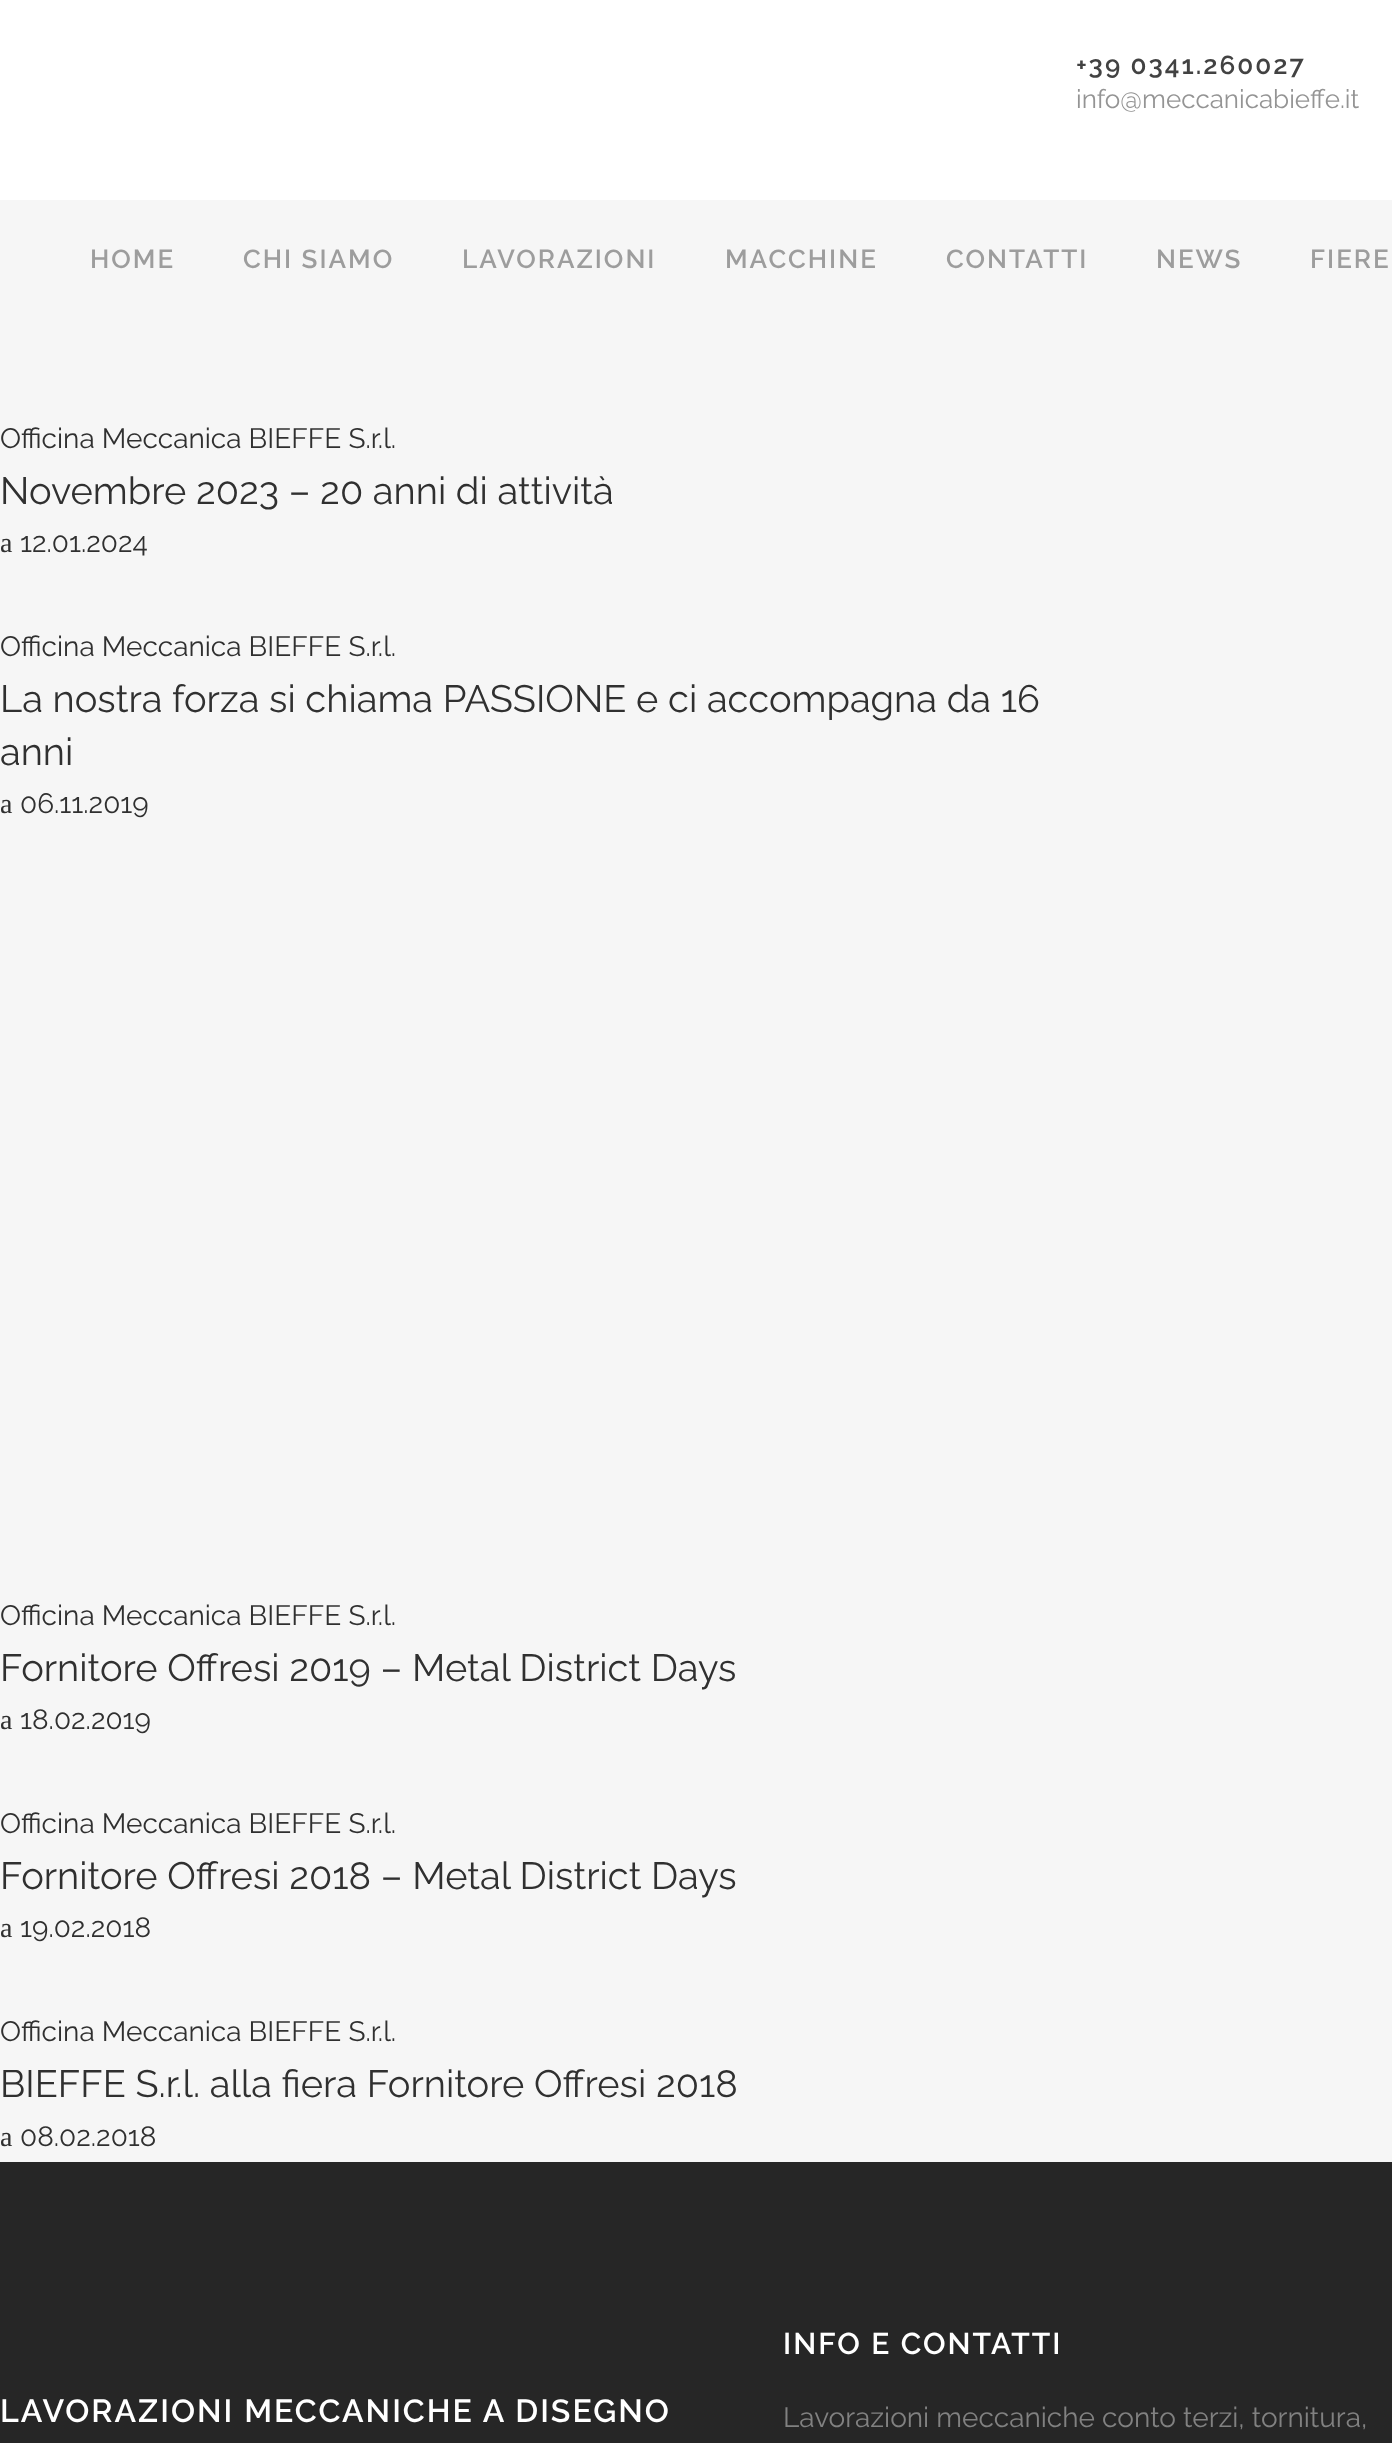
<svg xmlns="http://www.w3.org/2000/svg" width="1392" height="2443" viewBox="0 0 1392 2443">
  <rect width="100%" height="100%" fill="#f6f6f6"/>
  <path d="M0 0h1392v200H0z" fill="#fff"/>
  <path d="M0 2162h1392v281H0z" fill="#262626"/>
  <text x="1076" y="74" font-family="Raleway" font-size="26" font-weight="600" letter-spacing="2" fill="#424242">+39 0341.260027</text>
  <text x="1076" y="108" font-family="Raleway" font-size="26" fill="#949494">info@meccanicabieffe.it</text>
  <g font-family="Raleway" font-size="26" font-weight="600" letter-spacing="2" fill="#9d9d9d">
    <text x="90" y="268">HOME</text>
    <text x="243" y="268">CHI SIAMO</text>
    <text x="462" y="268">LAVORAZIONI</text>
    <text x="725" y="268">MACCHINE</text>
    <text x="946" y="268">CONTATTI</text>
    <text x="1156" y="268">NEWS</text>
    <text x="1310" y="268">FIERE</text>
  </g>
  <text x="0" y="448" font-family="Raleway" font-size="28" fill="#303030">Officina Meccanica BIEFFE S.r.l.</text>
  <text x="0" y="504" font-family="Raleway" font-size="38" fill="#303030">Novembre 2023 – 20 anni di attività</text>
  <text x="0" y="552" font-family="Liberation Serif" font-size="28" fill="#303030">a</text>
  <g font-family="Raleway" font-size="28" fill="#303030">
    <text x="20" y="552">12.01.2024</text>
    <text x="0" y="656">Officina Meccanica BIEFFE S.r.l.</text>
  </g>
  <g font-family="Raleway" font-size="38" fill="#303030">
    <text x="0" y="712">La nostra forza si chiama PASSIONE e ci accompagna da 16</text>
    <text x="0" y="765">anni</text>
  </g>
  <text x="0" y="813" font-family="Liberation Serif" font-size="28" fill="#303030">a</text>
  <g font-family="Raleway" font-size="28" fill="#303030">
    <text x="20" y="813">06.11.2019</text>
    <text x="0" y="1625">Officina Meccanica BIEFFE S.r.l.</text>
  </g>
  <text x="0" y="1681" font-family="Raleway" font-size="38" fill="#303030">Fornitore Offresi 2019 – Metal District Days</text>
  <text x="0" y="1729" font-family="Liberation Serif" font-size="28" fill="#303030">a</text>
  <g font-family="Raleway" font-size="28" fill="#303030">
    <text x="20" y="1729">18.02.2019</text>
    <text x="0" y="1833">Officina Meccanica BIEFFE S.r.l.</text>
  </g>
  <text x="0" y="1889" font-family="Raleway" font-size="38" fill="#303030">Fornitore Offresi 2018 – Metal District Days</text>
  <text x="0" y="1937" font-family="Liberation Serif" font-size="28" fill="#303030">a</text>
  <g font-family="Raleway" font-size="28" fill="#303030">
    <text x="20" y="1937">19.02.2018</text>
    <text x="0" y="2041">Officina Meccanica BIEFFE S.r.l.</text>
  </g>
  <text x="0" y="2097" font-family="Raleway" font-size="38" fill="#303030">BIEFFE S.r.l. alla fiera Fornitore Offresi 2018</text>
  <text x="0" y="2146" font-family="Liberation Serif" font-size="28" fill="#303030">a</text>
  <text x="20" y="2146" font-family="Raleway" font-size="28" fill="#303030">08.02.2018</text>
  <text x="0" y="2422" font-family="Raleway" font-size="32" font-weight="600" letter-spacing="2" fill="#fff">LAVORAZIONI MECCANICHE A DISEGNO</text>
  <text x="783" y="2354" font-family="Raleway" font-size="30" font-weight="600" letter-spacing="2" fill="#fff">INFO E CONTATTI</text>
  <text x="783" y="2427" font-family="Raleway" font-size="28" fill="#818181">Lavorazioni meccaniche conto terzi, tornitura,</text>
</svg>
